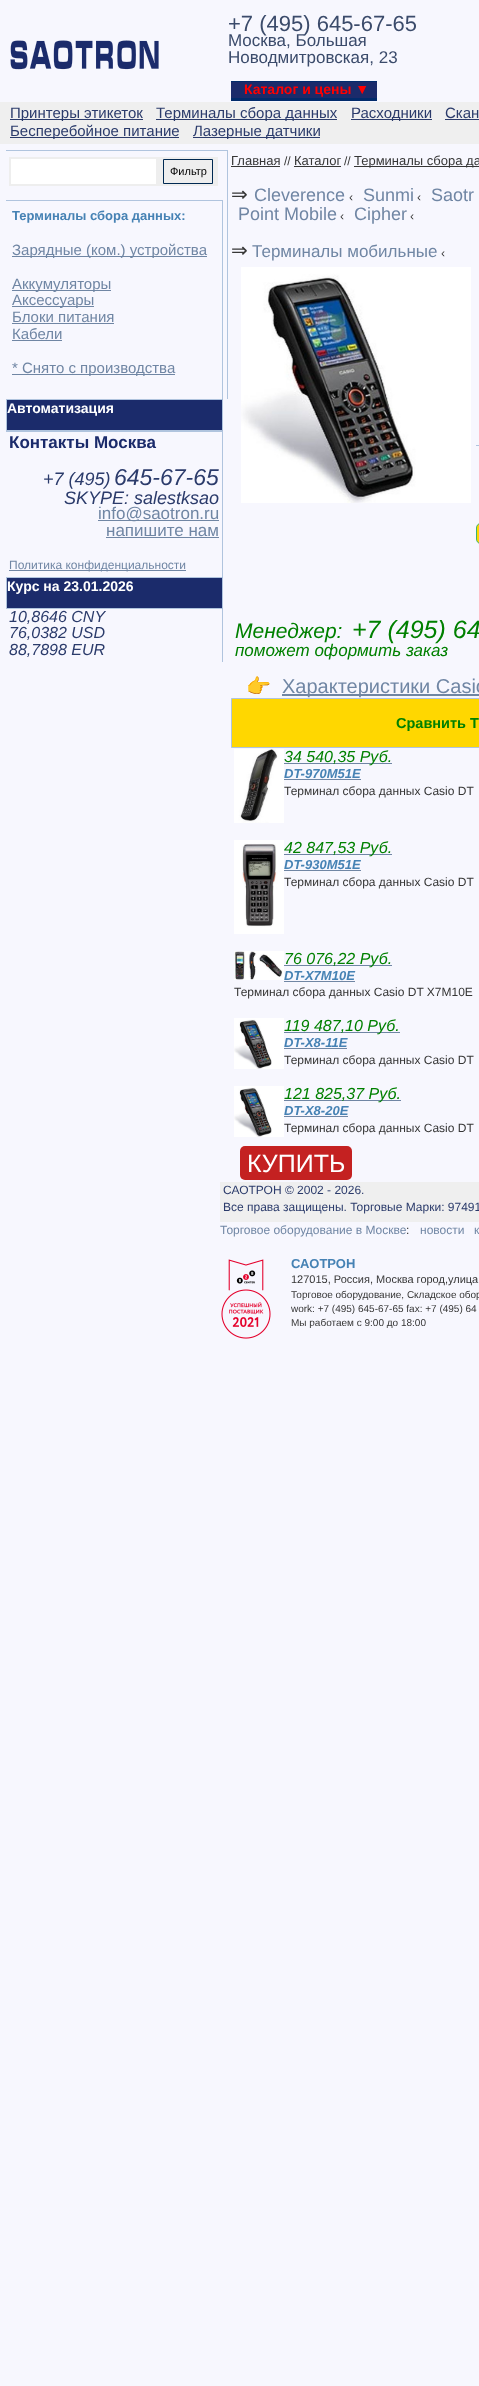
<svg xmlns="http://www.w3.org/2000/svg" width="479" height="2386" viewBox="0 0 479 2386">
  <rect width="100%" height="100%" fill="#f7f7fe"/>
  <image x="10" y="40" width="149" height="30" href="img/1.png"/>
  <path d="M231 81h146v20H231z" fill="#012b6b"/>
  <path d="M231 82h146v16H231z" fill="#1b2b6b"/>
  <path d="M0 102h479v42H0z" fill="#efefef"/>
  <path d="M10 119h133v1H10z" fill="#2b3b6b"/>
  <path d="M156 119h181v1H156z" fill="#2b3b6b"/>
  <path d="M351 119h81v1H351z" fill="#2b3b6b"/>
  <path d="M445 119h34v1H445z" fill="#2b3b6b"/>
  <path d="M10 137h169v1H10z" fill="#2b3b6b"/>
  <path d="M193 137h127v1H193z" fill="#2b3b6b"/>
  <path d="M6 150h222v1H6z" fill="#b0c4de"/>
  <path d="M227 150h1v249H227z" fill="#b0c4de"/>
  <path d="M9 157h209v29H9z" fill="#eee"/>
  <path d="M11 159h145v25H11z" fill="#fff"/>
  <path d="M163.5 159.5h49v24H163.5z" fill="none" stroke="#002952"/>
  <path d="M12 256h195v1H12z" fill="#7086a4"/>
  <path d="M12 290h99v1H12z" fill="#7086a4"/>
  <path d="M12 306h82v1H12z" fill="#7086a4"/>
  <path d="M12 323h102v1H12z" fill="#7086a4"/>
  <path d="M12 340h50v1H12z" fill="#7086a4"/>
  <path d="M12 374h163v1H12z" fill="#7086a4"/>
  <path d="M6 200h217v1H6z" fill="#b0c4de"/>
  <path d="M222 200h1v462H222z" fill="#b0c4de"/>
  <path d="M6.5 399.5h216v31H6.5z" fill="#1b2b6b" stroke="#b0c4de"/>
  <path d="M6 431h217v1H6z" fill="#b0c4de"/>
  <path d="M98 520h121v1H98z" fill="#7086a4"/>
  <path d="M106 537h113v1H106z" fill="#7086a4"/>
  <path d="M9 570h177v1H9z" fill="#7086a4"/>
  <path d="M6.5 577.5h216v31H6.5z" fill="#1b2b6b" stroke="#b0c4de"/>
  <path d="M231 166h49v1H231z" fill="#363636"/>
  <path d="M294 166h47v1H294z" fill="#363636"/>
  <path d="M354 166h125v1H354z" fill="#363636"/>
  <image x="241" y="267" width="230" height="236" href="img/2.png"/>
  <path d="M476 445h3v1H476z" fill="#b0c4de"/>
  <rect x="476.5" y="523.5" width="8" height="20" rx="4.5" fill="#ffd700" stroke="#3cb371"/>
  <path d="M282 694h197v2H282z" fill="#7086a4"/>
  <path d="M231.5 698.5h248v49H231.5z" fill="#ffd700" stroke="#b0c4de"/>
  <image x="234" y="749" width="50" height="74" href="img/3.png"/>
  <path d="M284 763h108v1H284z" fill="#7086a4"/>
  <path d="M284 779h77v1H284z" fill="#7086a4"/>
  <image x="234" y="840" width="50" height="94" href="img/4.png"/>
  <path d="M284 854h108v1H284z" fill="#7086a4"/>
  <path d="M284 870h77v1H284z" fill="#7086a4"/>
  <image x="234" y="951" width="50" height="29" href="img/5.png"/>
  <path d="M284 965h108v1H284z" fill="#7086a4"/>
  <path d="M284 981h71v1H284z" fill="#7086a4"/>
  <image x="234" y="1018" width="50" height="51" href="img/6.png"/>
  <path d="M284 1032h116v1H284z" fill="#7086a4"/>
  <path d="M284 1048h63v1H284z" fill="#7086a4"/>
  <image x="234" y="1086" width="50" height="51" href="img/7.png"/>
  <path d="M284 1100h117v1H284z" fill="#7086a4"/>
  <path d="M284 1116h64v1H284z" fill="#7086a4"/>
  <rect x="240" y="1146" width="112" height="34" rx="5" fill="#c42121"/>
  <path d="M220 1182h259v40H220z" fill="#efefef"/>
  <image x="221" y="1259" width="50" height="80" href="img/8.png"/>
  <text x="228" y="31" font-family="Liberation Sans" font-size="22" fill="#3b4b6b">+7 (495) 645-67-65</text>
  <g font-family="Liberation Sans" font-size="17" fill="#3b4b6b">
    <text x="228" y="46">Москва, Большая</text>
    <text x="228" y="63">Новодмитровская, 23</text>
  </g>
  <text x="244" y="94" font-family="Liberation Sans" font-size="14" font-weight="bold" fill="#f00">Каталог и цены ▼</text>
  <g font-family="Liberation Sans" font-size="15" fill="#2b3b6b">
    <text x="10" y="118">Принтеры этикеток</text>
    <text x="156" y="118">Терминалы сбора данных</text>
    <text x="351" y="118">Расходники</text>
    <text x="445" y="118">Скан</text>
    <text x="10" y="136">Бесперебойное питание</text>
    <text x="193" y="136">Лазерные датчики</text>
  </g>
  <text x="170" y="175" font-family="Liberation Sans" font-size="11" fill="#000">Фильтр</text>
  <text x="12" y="220" font-family="Liberation Sans" font-size="13" font-weight="bold" fill="#4682b4">Терминалы сбора данных:</text>
  <g font-family="Liberation Sans" font-size="15" fill="#7086a4">
    <text x="12" y="255">Зарядные (ком.) устройства</text>
    <text x="12" y="289">Аккумуляторы</text>
    <text x="12" y="305">Аксессуары</text>
    <text x="12" y="322">Блоки питания</text>
    <text x="12" y="339">Кабели</text>
    <text x="12" y="373">* Снято с производства</text>
  </g>
  <text x="7" y="413" font-family="Liberation Sans" font-size="14" font-weight="bold" fill="#fff">Автоматизация</text>
  <text x="9" y="448" font-family="Liberation Sans" font-size="17" font-weight="bold" fill="#1b2b6b">Контакты Москва</text>
  <text x="43" y="485" font-family="Liberation Sans" font-size="18" font-style="italic" fill="#2b3b6b">+7 (495)</text>
  <text x="114" y="485" font-family="Liberation Sans" font-size="23" font-style="italic" fill="#2b3b6b">645-67-65</text>
  <text x="64" y="504" font-family="Liberation Sans" font-size="18" font-style="italic" fill="#2b3b6b">SKYPE: salestksao</text>
  <g font-family="Liberation Sans" font-size="17" fill="#7086a4">
    <text x="98" y="519">info@saotron.ru</text>
    <text x="106" y="536">напишите нам</text>
  </g>
  <text x="9" y="569" font-family="Liberation Sans" font-size="12" fill="#7086a4">Политика конфиденциальности</text>
  <text x="7" y="591" font-family="Liberation Sans" font-size="14" font-weight="bold" fill="#fff">Курс на 23.01.2026</text>
  <g font-family="Liberation Sans" font-size="16" font-style="italic" fill="#2b3b6b">
    <text x="9" y="622">10,8646 CNY</text>
    <text x="9" y="638">76,0382 USD</text>
    <text x="9" y="655">88,7898 EUR</text>
  </g>
  <text x="231" y="165" font-family="Liberation Sans" font-size="13" fill="#363636">Главная</text>
  <text x="284" y="165" font-family="Liberation Sans" font-size="12" fill="#363636">//</text>
  <text x="294" y="165" font-family="Liberation Sans" font-size="13" fill="#363636">Каталог</text>
  <text x="344" y="165" font-family="Liberation Sans" font-size="12" fill="#363636">//</text>
  <text x="354" y="165" font-family="Liberation Sans" font-size="13" fill="#363636">Терминалы сбора да</text>
  <text x="231" y="201" font-family="DejaVu Sans" font-size="20" fill="#363636">⇒</text>
  <text x="254" y="201" font-family="Liberation Sans" font-size="18" fill="#7086a4">Cleverence</text>
  <text x="349" y="201" font-family="Liberation Sans" font-size="12" fill="#363636">‹</text>
  <text x="363" y="201" font-family="Liberation Sans" font-size="18" fill="#7086a4">Sunmi</text>
  <text x="417" y="201" font-family="Liberation Sans" font-size="12" fill="#363636">‹</text>
  <g font-family="Liberation Sans" font-size="18" fill="#7086a4">
    <text x="431" y="201">Saotr</text>
    <text x="238" y="220">Point Mobile</text>
  </g>
  <text x="340" y="220" font-family="Liberation Sans" font-size="12" fill="#363636">‹</text>
  <text x="354" y="220" font-family="Liberation Sans" font-size="18" fill="#7086a4">Cipher</text>
  <text x="410" y="220" font-family="Liberation Sans" font-size="12" fill="#363636">‹</text>
  <text x="231" y="257" font-family="DejaVu Sans" font-size="20" fill="#363636">⇒</text>
  <text x="252" y="257" font-family="Liberation Sans" font-size="17" fill="#7086a4">Терминалы мобильные</text>
  <text x="441" y="257" font-family="Liberation Sans" font-size="12" fill="#363636">‹</text>
  <text x="235" y="638" font-family="Liberation Sans" font-size="21" font-style="italic" fill="#008000">Менеджер:</text>
  <text x="352" y="638" font-family="Liberation Sans" font-size="25" font-style="italic" fill="#008000">+7 (495) 64</text>
  <text x="235" y="656" font-family="Liberation Sans" font-size="17" font-style="italic" fill="#008000">поможет оформить заказ</text>
  <text x="246" y="693" font-family="Noto Color Emoji" font-size="20" fill="#7086a4">👉</text>
  <text x="282" y="693" font-family="Liberation Sans" font-size="20" fill="#7086a4">Характеристики Casio</text>
  <text x="396" y="728" font-family="Liberation Sans" font-size="14.5" font-weight="bold" fill="#008000">Сравнить Т</text>
  <text x="284" y="762" font-family="Liberation Sans" font-size="16" font-style="italic" fill="#008000">34 540,35 Руб.</text>
  <text x="284" y="778" font-family="Liberation Sans" font-size="13" font-weight="bold" font-style="italic" fill="#4682b4">DT-970M51E</text>
  <text x="284" y="795" font-family="Liberation Sans" font-size="12" fill="#363636">Терминал сбора данных Casio DT</text>
  <text x="284" y="853" font-family="Liberation Sans" font-size="16" font-style="italic" fill="#008000">42 847,53 Руб.</text>
  <text x="284" y="869" font-family="Liberation Sans" font-size="13" font-weight="bold" font-style="italic" fill="#4682b4">DT-930M51E</text>
  <text x="284" y="886" font-family="Liberation Sans" font-size="12" fill="#363636">Терминал сбора данных Casio DT</text>
  <text x="284" y="964" font-family="Liberation Sans" font-size="16" font-style="italic" fill="#008000">76 076,22 Руб.</text>
  <text x="284" y="980" font-family="Liberation Sans" font-size="13" font-weight="bold" font-style="italic" fill="#4682b4">DT-X7M10E</text>
  <text x="234" y="996" font-family="Liberation Sans" font-size="12" fill="#363636">Терминал сбора данных Casio DT X7M10E</text>
  <text x="284" y="1031" font-family="Liberation Sans" font-size="16" font-style="italic" fill="#008000">119 487,10 Руб.</text>
  <text x="284" y="1047" font-family="Liberation Sans" font-size="13" font-weight="bold" font-style="italic" fill="#4682b4">DT-X8-11E</text>
  <text x="284" y="1064" font-family="Liberation Sans" font-size="12" fill="#363636">Терминал сбора данных Casio DT</text>
  <text x="284" y="1099" font-family="Liberation Sans" font-size="16" font-style="italic" fill="#008000">121 825,37 Руб.</text>
  <text x="284" y="1115" font-family="Liberation Sans" font-size="13" font-weight="bold" font-style="italic" fill="#4682b4">DT-X8-20E</text>
  <text x="284" y="1132" font-family="Liberation Sans" font-size="12" fill="#363636">Терминал сбора данных Casio DT</text>
  <text x="247" y="1172" font-family="Liberation Sans" font-size="25" fill="#fff">КУПИТЬ</text>
  <g font-family="Liberation Sans" font-size="12" fill="#2b3b6b">
    <text x="223" y="1194">САОТРОН © 2002 - 2026.</text>
    <text x="223" y="1211">Все права защищены. Торговые Марки: 97491</text>
  </g>
  <text x="220" y="1234" font-family="Liberation Sans" font-size="12" fill="#7086a4">Торговое оборудование в Москве</text>
  <text x="406" y="1234" font-family="Liberation Sans" font-size="12" fill="#363636">:</text>
  <g font-family="Liberation Sans" font-size="12" fill="#7086a4">
    <text x="420" y="1234">новости</text>
    <text x="474" y="1234">к</text>
  </g>
  <text x="291" y="1268" font-family="Liberation Sans" font-size="13" font-weight="bold" fill="#4682b4">САОТРОН</text>
  <text x="291" y="1283" font-family="Liberation Sans" font-size="11" fill="#363636">127015, Россия, Москва город,улица</text>
  <g font-family="Liberation Sans" font-size="10" fill="#363636">
    <text x="291" y="1298">Торговое оборудование, Складское обор</text>
    <text x="291" y="1312">work: +7 (495) 645-67-65 fax: +7 (495) 64</text>
    <text x="291" y="1326">Мы работаем с 9:00 до 18:00</text>
  </g>
</svg>
